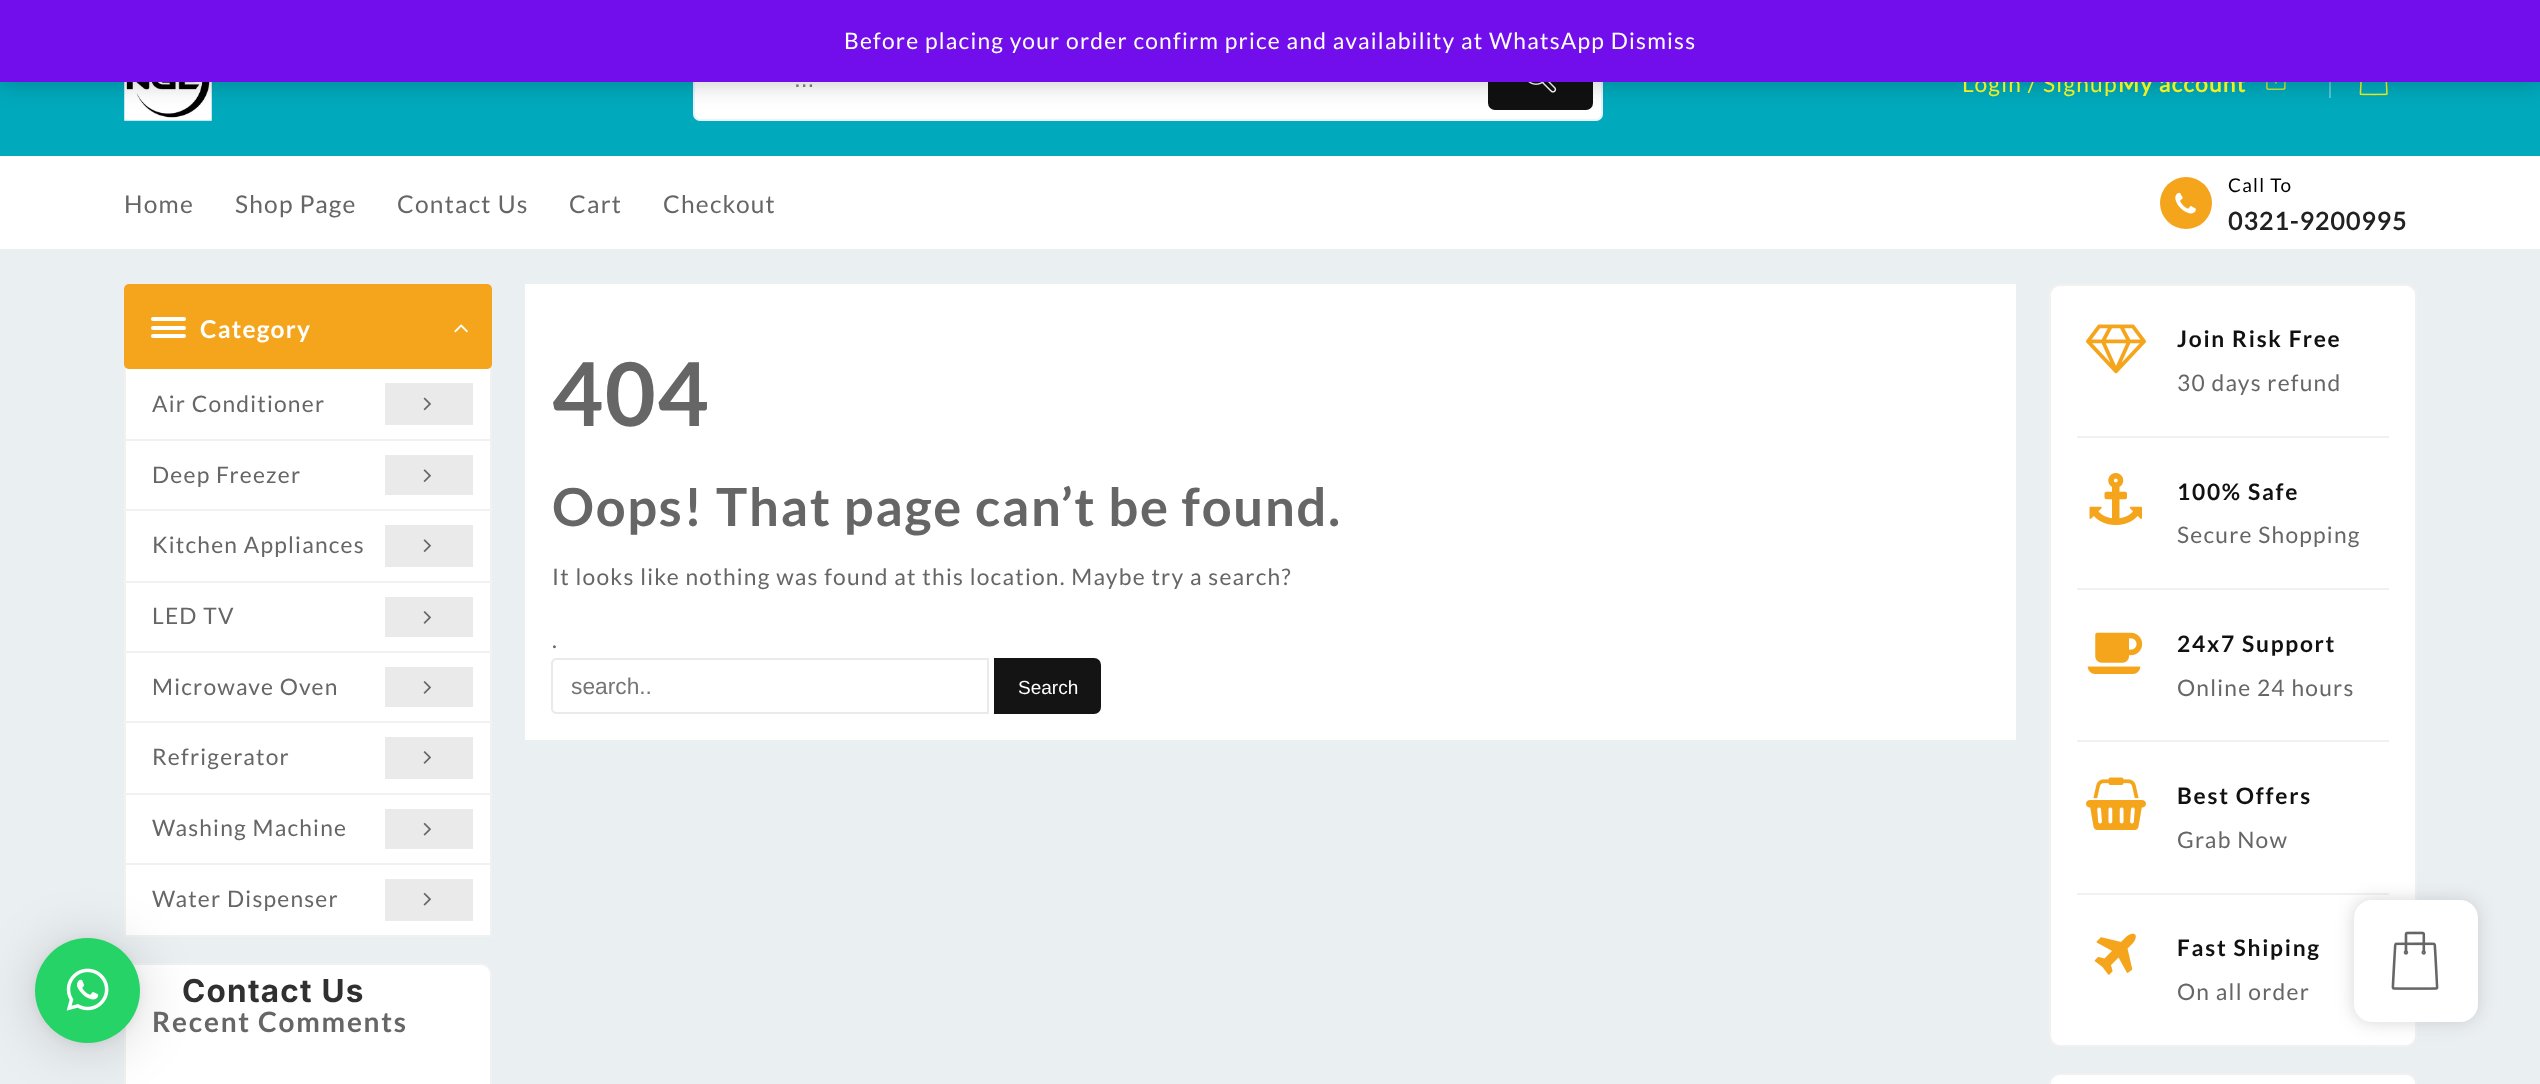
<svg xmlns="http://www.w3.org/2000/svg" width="2540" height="1084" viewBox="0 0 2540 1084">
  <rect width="100%" height="100%" fill="#eaeff2"/>
  <path d="M0 82h2540v74H0z" fill="#00a9bc"/>
  <image x="124" y="82" width="88" height="39" href="img/1.png"/>
  <rect x="694" y="40" width="908" height="80" rx="6" fill="#fff" stroke="#e7f5ff" stroke-width="2"/>
  <rect x="695" y="40" width="784" height="79" rx="7" fill="#fff"/>
  <rect x="1488" y="49" width="105" height="61" rx="7" fill="#111"/>
  <image x="1528" y="82" width="29" height="11" href="img/2.png"/>
  <image x="2266" y="82" width="20" height="8" href="img/3.png"/>
  <path d="M2329 82h2v16H2329z" fill="#52c5d1"/>
  <image x="2359" y="82" width="29" height="14" href="img/4.png"/>
  <path d="M0 2h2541v82H0z" fill="#00000033" filter="blur(11.5px)"/>
  <path d="M0 156h2540v93H0z" fill="#fff"/>
  <circle cx="2186" cy="203" r="26" fill="#f4a51c"/>
  <image x="2175" y="192" width="21" height="22" href="img/5.png"/>
  <rect x="124" y="284" width="368" height="85" rx="5" fill="#f4a51c"/>
  <rect x="151" y="317" width="35" height="4" rx="2" fill="#fff"/>
  <rect x="151" y="326" width="35" height="4" rx="2" fill="#fff"/>
  <rect x="151" y="334" width="35" height="4" rx="2" fill="#fff"/>
  <image x="454" y="324" width="14" height="9" href="img/6.png"/>
  <path d="M126 369h364v566H126z" fill="#fff"/>
  <path d="M490 369h2v567H490z" fill="#f1f1f1"/>
  <path d="M124 935h368v2H124z" fill="#f1f1f1"/>
  <path d="M124 369h2v567H124z" fill="#f1f1f1"/>
  <path d="M126 439h364v2H126z" fill="#f1f1f1"/>
  <path d="M385 383h88v42H385z" fill="#eaeaea"/>
  <image x="423" y="397" width="8" height="14" href="img/7.png"/>
  <path d="M126 509h364v2H126z" fill="#f1f1f1"/>
  <path d="M385 455h88v40H385z" fill="#eaeaea"/>
  <image x="423" y="469" width="8" height="13" href="img/8.png"/>
  <path d="M126 581h364v2H126z" fill="#f1f1f1"/>
  <path d="M385 525h88v42H385z" fill="#eaeaea"/>
  <image x="423" y="539" width="8" height="13" href="img/8.png"/>
  <path d="M126 651h364v2H126z" fill="#f1f1f1"/>
  <path d="M385 597h88v40H385z" fill="#eaeaea"/>
  <image x="423" y="611" width="8" height="13" href="img/9.png"/>
  <path d="M126 721h364v2H126z" fill="#f1f1f1"/>
  <path d="M385 667h88v40H385z" fill="#eaeaea"/>
  <image x="423" y="681" width="8" height="13" href="img/9.png"/>
  <path d="M126 793h364v2H126z" fill="#f1f1f1"/>
  <path d="M385 737h88v42H385z" fill="#eaeaea"/>
  <image x="423" y="751" width="8" height="13" href="img/9.png"/>
  <path d="M126 863h364v2H126z" fill="#f1f1f1"/>
  <path d="M385 809h88v40H385z" fill="#eaeaea"/>
  <image x="423" y="822" width="8" height="14" href="img/10.png"/>
  <path d="M385 879h88v42H385z" fill="#eaeaea"/>
  <image x="423" y="892" width="8" height="14" href="img/10.png"/>
  <rect x="125" y="964" width="366" height="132" rx="10" fill="#fff" stroke="#f1f1f1" stroke-width="2"/>
  <path d="M525 284h1491v456H525z" fill="#fff"/>
  <path d="M556 659H988V713H556C554 713 552 711 552 709V663C552 661 554 659 556 659Z" fill="none" stroke="#eaeaea" stroke-width="2"/>
  <path d="M995 659H1094C1097.5 659 1100 661.5 1100 665V707C1100 710.5 1097.5 713 1094 713H995Z" fill="#141415" stroke="#141415" stroke-width="2"/>
  <rect x="2050" y="285" width="366" height="761" rx="10" fill="#fff" stroke="#f1f1f1" stroke-width="2"/>
  <path d="M2077 436h312v2H2077z" fill="#f1f1f1"/>
  <image x="2086" y="324" width="60" height="50" href="img/11.png"/>
  <path d="M2077 588h312v2H2077z" fill="#f1f1f1"/>
  <image x="2089" y="473" width="53" height="52" href="img/12.png"/>
  <path d="M2077 740h312v2H2077z" fill="#f1f1f1"/>
  <image x="2087" y="632" width="56" height="42" href="img/13.png"/>
  <path d="M2077 893h312v2H2077z" fill="#f1f1f1"/>
  <image x="2086" y="777" width="60" height="53" href="img/14.png"/>
  <image x="2094" y="933" width="42" height="42" href="img/15.png"/>
  <rect x="2050" y="1074" width="366" height="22" rx="10" fill="#fff" stroke="#f1f1f1" stroke-width="2"/>
  <rect x="2354" y="900" width="124" height="122" rx="18" fill="#b7b7b799" filter="blur(9px)"/>
  <rect x="2354" y="900" width="124" height="122" rx="18" fill="#fff"/>
  <image x="2391" y="931" width="48" height="59" href="img/16.png"/>
  <rect x="35" y="942" width="105" height="105" rx="52.5" fill="#00000029" filter="blur(28px)"/>
  <rect x="35" y="940" width="105" height="105" rx="52.5" fill="#0000000f" filter="blur(5px)"/>
  <circle cx="87.5" cy="990.5" r="52.5" fill="#25d366"/>
  <image x="66" y="968" width="43" height="43" href="img/17.png"/>
  <text x="794" y="87" font-family="Liberation Sans" font-size="24.5" fill="#757575">...</text>
  <text x="1962" y="92" font-family="Lato" font-size="22.75" letter-spacing="1.22" fill="#ee2">Login / Signup</text>
  <text x="2118" y="92" font-family="Lato" font-size="22.75" font-weight="bold" letter-spacing="1.22" fill="#ee2">My account</text>
  <path d="M0 0h2540v82H0z" fill="#720eec"/>
  <text x="844" y="49" font-family="Lato" font-size="22.75" letter-spacing="1.22" fill="#fff">Before placing your order confirm price and availability at WhatsApp Dismiss</text>
  <g font-family="Lato" font-size="24.5" letter-spacing="1.22" fill="#666">
    <text x="124" y="213">Home</text>
    <text x="235" y="213">Shop Page</text>
    <text x="397" y="213">Contact Us</text>
    <text x="569" y="213">Cart</text>
    <text x="663" y="213">Checkout</text>
  </g>
  <text x="2228" y="192" font-family="Lato" font-size="19" letter-spacing="1.22" fill="#000">Call To</text>
  <text x="2228" y="230" font-family="Lato" font-size="24.5" font-weight="bold" letter-spacing="1.22" fill="#212121">0321-9200995</text>
  <text x="200" y="338" font-family="'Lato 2'" font-size="24.5" font-weight="bold" letter-spacing="1.22" fill="#fff">Category</text>
  <g font-family="Lato" font-size="22.75" letter-spacing="1.22" fill="#666">
    <text x="152" y="412">Air Conditioner</text>
    <text x="152" y="483">Deep Freezer</text>
    <text x="152" y="553">Kitchen Appliances</text>
    <text x="152" y="624">LED TV</text>
    <text x="152" y="695">Microwave Oven</text>
    <text x="152" y="765">Refrigerator</text>
    <text x="152" y="836">Washing Machine</text>
    <text x="152" y="907">Water Dispenser</text>
  </g>
  <text x="152" y="1032" font-family="'Lato 2'" font-size="28" font-weight="bold" letter-spacing="1.75" fill="#666">Recent Comments</text>
  <text x="552" y="426" font-family="'Lato 2'" font-size="88" font-weight="bold" letter-spacing="1.75" fill="#666">404</text>
  <text x="552" y="526" font-family="'Lato 2'" font-size="52.5" font-weight="bold" letter-spacing="1.75" fill="#666">Oops! That page can’t be found.</text>
  <g font-family="Lato" font-size="22.75" letter-spacing="1.22" fill="#666">
    <text x="552" y="585">It looks like nothing was found at this location. Maybe try a search?</text>
    <text x="552" y="648">.</text>
  </g>
  <text x="571" y="694" font-family="Liberation Sans" font-size="22.75" fill="#757575">search..</text>
  <text x="1018" y="694" font-family="Liberation Sans" font-size="19" fill="#fff">Search</text>
  <text x="2177" y="347" font-family="'Lato 2'" font-size="22.75" font-weight="bold" letter-spacing="1.75" fill="#111">Join Risk Free</text>
  <text x="2177" y="391" font-family="Lato" font-size="22.75" letter-spacing="1.22" fill="#666">30 days refund</text>
  <text x="2177" y="500" font-family="'Lato 2'" font-size="22.75" font-weight="bold" letter-spacing="1.75" fill="#111">100% Safe</text>
  <text x="2177" y="543" font-family="Lato" font-size="22.75" letter-spacing="1.22" fill="#666">Secure Shopping</text>
  <text x="2177" y="652" font-family="'Lato 2'" font-size="22.75" font-weight="bold" letter-spacing="1.75" fill="#111">24x7 Support</text>
  <text x="2177" y="696" font-family="Lato" font-size="22.75" letter-spacing="1.22" fill="#666">Online 24 hours</text>
  <text x="2177" y="804" font-family="'Lato 2'" font-size="22.75" font-weight="bold" letter-spacing="1.75" fill="#111">Best Offers</text>
  <text x="2177" y="848" font-family="Lato" font-size="22.75" letter-spacing="1.22" fill="#666">Grab Now</text>
  <text x="2177" y="956" font-family="'Lato 2'" font-size="22.75" font-weight="bold" letter-spacing="1.75" fill="#111">Fast Shiping</text>
  <text x="2177" y="1000" font-family="Lato" font-size="22.75" letter-spacing="1.22" fill="#666">On all order</text>
  <text x="182" y="1002" font-family="Inter" font-size="31.5" font-weight="bold" letter-spacing="1.22" fill="#303030">Contact Us</text>
</svg>
